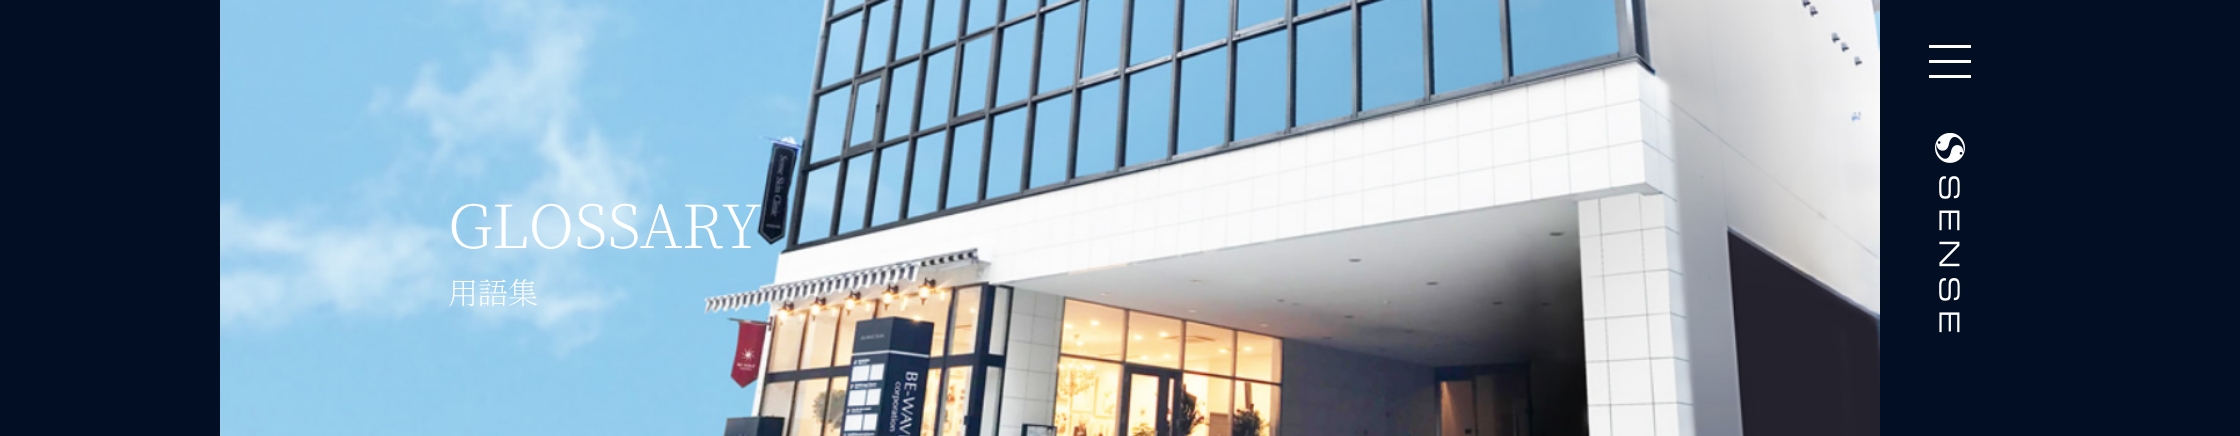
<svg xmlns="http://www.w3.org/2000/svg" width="2240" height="436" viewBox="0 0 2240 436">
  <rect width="100%" height="100%" fill="#020e24"/>
  <image x="220" y="0" width="1660" height="436" href="img/1.png"/>
  <path d="M1929 45h42v3H1929z" fill="#fff"/>
  <path d="M1929 60h42v3H1929z" fill="#fff"/>
  <path d="M1929 75h42v3H1929z" fill="#fff"/>
  <image x="1935" y="133" width="30" height="200" href="img/2.png"/>
  <text x="448" y="248" font-family="Noto Serif JP" font-size="60" font-weight="200" fill="#fff">GLOSSARY</text>
  <text x="448" y="304" font-family="Noto Serif JP" font-size="30" font-weight="200" fill="#fff">用語集</text>
</svg>
